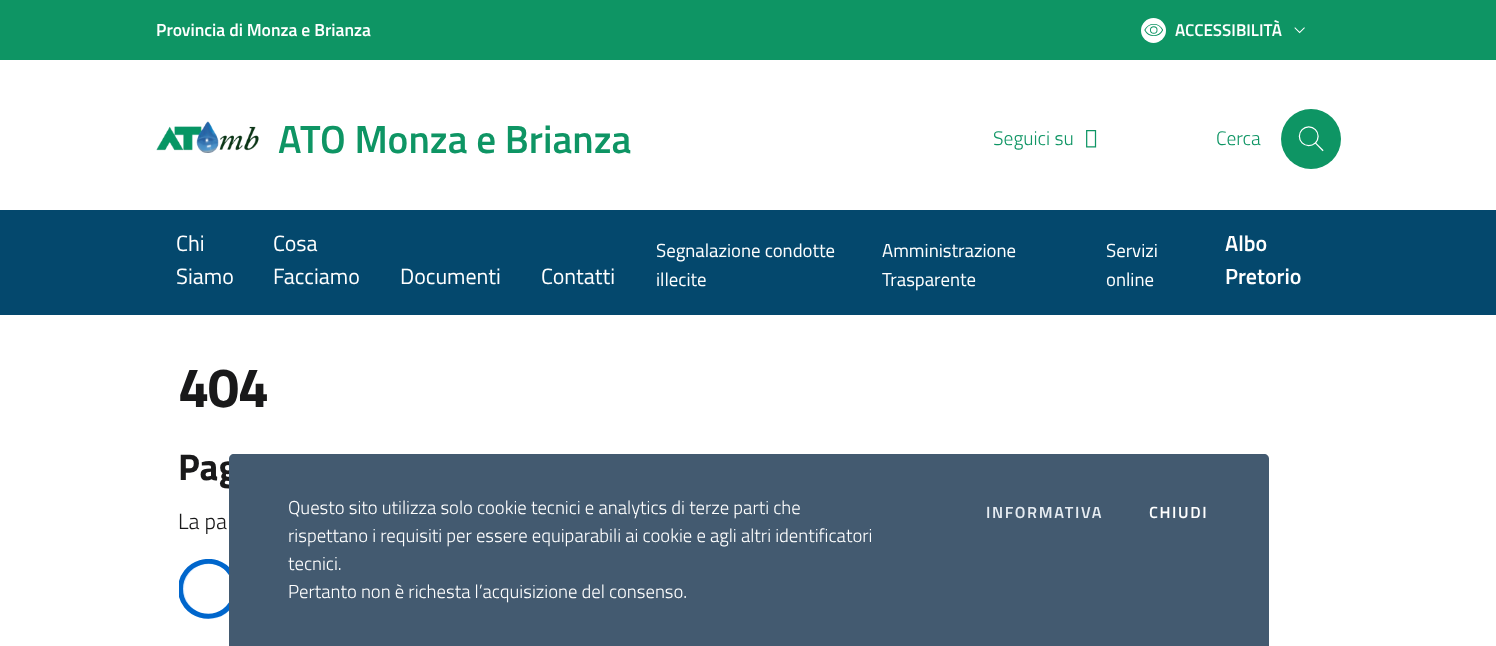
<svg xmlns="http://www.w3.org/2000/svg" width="1496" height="646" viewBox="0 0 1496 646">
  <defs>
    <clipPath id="clip1"><path d="M179 559h60v30H179z"/></clipPath>
    <clipPath id="clip2"><path d="M179 589h60v30H179z"/></clipPath>
  </defs>
  <rect width="100%" height="100%" fill="#fff"/>
  <path d="M0 0h1496v60H0z" fill="#0e9564"/>
  <circle cx="1153.5" cy="30.5" r="12.5" fill="#fff"/>
  <image x="1144" y="24" width="19" height="12" href="img/1.png"/>
  <image x="1294" y="27" width="11" height="7" href="img/2.png"/>
  <image x="156" y="121" width="103" height="32" href="img/3.png"/>
  <image x="1086" y="130" width="11" height="18" href="img/4.png"/>
  <circle cx="1311" cy="139" r="30" fill="#0e9564"/>
  <image x="1298" y="126" width="26" height="26" href="img/5.png"/>
  <path d="M0 210h1496v105H0z" fill="#04486d"/>
  <circle cx="209" cy="589" r="27.5" fill="none" stroke="#d4e9ff" stroke-width="5"/>
  <g clip-path="url(#clip1)">
    <path d="M180.5 589C180.5 562 216 551 231 573.5C234 578 235.5 583.5 235.5 589" fill="none" stroke="#06c" stroke-width="5"/>
  </g>
  <g clip-path="url(#clip2)">
    <path d="M235.5 589C235.5 594.5 234 599.5 231 604C216 626.5 180.5 616 180.5 589" fill="none" stroke="#06c" stroke-width="5"/>
  </g>
  <text x="156" y="36" font-family="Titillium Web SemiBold" font-size="17.6" font-weight="600" fill="#fff">Provincia di Monza e Brianza</text>
  <text x="1175" y="36" font-family="Titillium Web SemiBold" font-size="17" font-weight="600" fill="#fff">ACCESSIBILITÀ</text>
  <text x="278" y="153" font-family="Titillium Web SemiBold" font-size="39.25" font-weight="600" fill="#0e9564">ATO Monza e Brianza</text>
  <g font-family="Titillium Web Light" font-size="19.5" font-weight="300" fill="#0e9564">
    <text x="993" y="145">Seguici su</text>
    <text x="1216" y="145">Cerca</text>
  </g>
  <g font-family="Titillium Web" font-size="22" fill="#fff">
    <text x="176" y="251">Chi</text>
    <text x="176" y="284">Siamo</text>
    <text x="273" y="251">Cosa</text>
    <text x="273" y="284">Facciamo</text>
    <text x="400" y="284">Documenti</text>
    <text x="541" y="284">Contatti</text>
  </g>
  <g font-family="Titillium Web" font-size="18.75" fill="#fff">
    <text x="656" y="257">Segnalazione condotte</text>
    <text x="656" y="286">illecite</text>
    <text x="882" y="257">Amministrazione</text>
    <text x="882" y="286">Trasparente</text>
    <text x="1106" y="257">Servizi</text>
    <text x="1106" y="286">online</text>
  </g>
  <g font-family="Titillium Web SemiBold" font-size="22" font-weight="600" fill="#fff">
    <text x="1225" y="251">Albo</text>
    <text x="1225" y="284">Pretorio</text>
  </g>
  <text x="178" y="407" font-family="Titillium Web" font-size="56" font-weight="bold" letter-spacing="-1.5" fill="#19191a">404</text>
  <text x="178" y="480" font-family="Titillium Web" font-size="37" font-weight="bold" fill="#19191a">Pag</text>
  <text x="178" y="529" font-family="Titillium Web Light" font-size="22" font-weight="300" fill="#19191a">La pa</text>
  <path d="M234 454H1264C1267 454 1269 456 1269 459V646H229V459C229 456 231 454 234 454Z" fill="#435a70"/>
  <g font-family="Titillium Web Light" font-size="18.7" font-weight="300" fill="#fff">
    <text x="288" y="514">Questo sito utilizza solo cookie tecnici e analytics di terze parti che</text>
    <text x="288" y="542">rispettano i requisiti per essere equiparabili ai cookie e agli altri identificatori</text>
    <text x="288" y="570">tecnici.</text>
    <text x="288" y="598">Pertanto non è richesta l’acquisizione del consenso.</text>
  </g>
  <text x="986" y="518" font-family="Titillium Web SemiBold" font-size="16.25" font-weight="600" letter-spacing="1.6" fill="#e6ecf2">INFORMATIVA</text>
  <text x="1149" y="518" font-family="Titillium Web SemiBold" font-size="16.25" font-weight="600" letter-spacing="1.6" fill="#fff">CHIUDI</text>
</svg>
